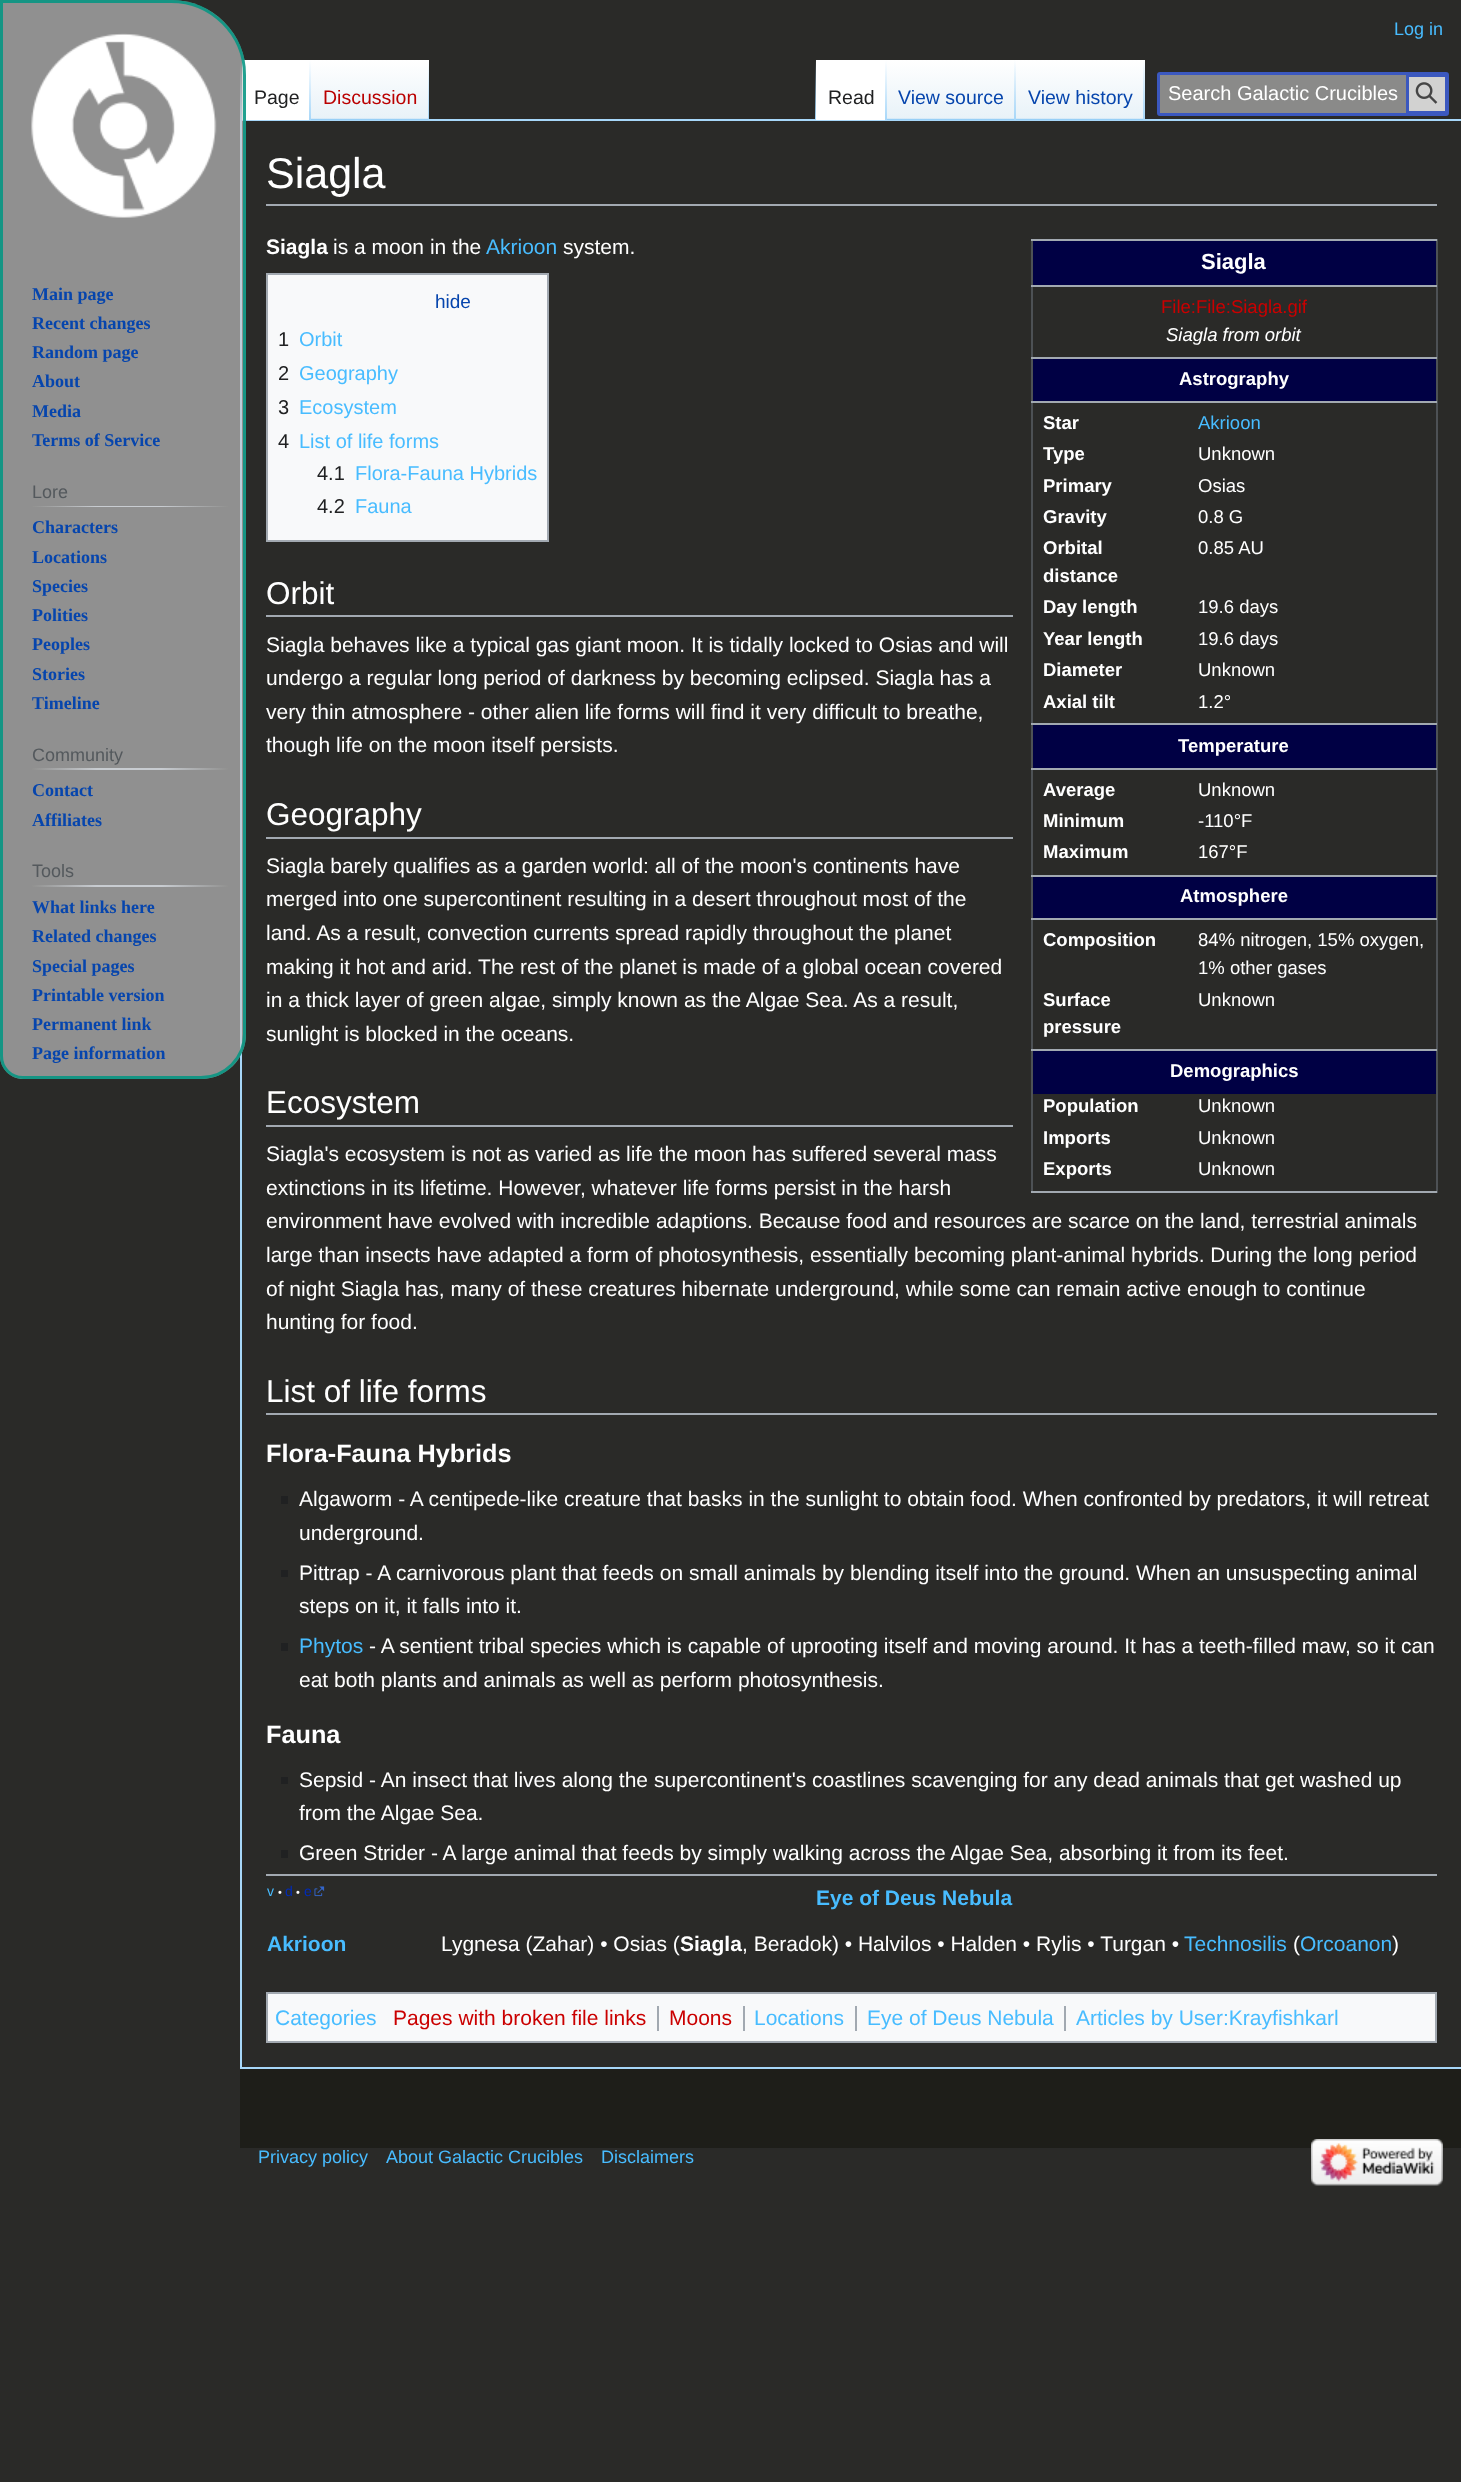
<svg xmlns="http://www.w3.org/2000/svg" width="1461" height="2482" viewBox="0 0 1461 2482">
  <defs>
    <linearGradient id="g1" gradientUnits="userSpaceOnUse" x1="241" y1="60" x2="241" y2="120"><stop offset="0" stop-color="#a7d7f9" stop-opacity="0"/><stop offset="1" stop-color="#a7d7f9"/></linearGradient>
    <linearGradient id="g2" gradientUnits="userSpaceOnUse" x1="310" y1="60" x2="310" y2="120"><stop offset="0" stop-color="#fff"/><stop offset="1" stop-color="#a7d7f9"/></linearGradient>
    <linearGradient id="g3" gradientUnits="userSpaceOnUse" x1="370" y1="120" x2="370" y2="60"><stop offset="0" stop-color="#77c1f6"/><stop offset="0.03" stop-color="#e8f2f8"/><stop offset="1" stop-color="#fff"/></linearGradient>
    <linearGradient id="g4" gradientUnits="userSpaceOnUse" x1="428" y1="60" x2="428" y2="120"><stop offset="0" stop-color="#a7d7f9" stop-opacity="0"/><stop offset="1" stop-color="#a7d7f9"/></linearGradient>
    <linearGradient id="g5" gradientUnits="userSpaceOnUse" x1="815" y1="60" x2="815" y2="120"><stop offset="0" stop-color="#a7d7f9" stop-opacity="0"/><stop offset="1" stop-color="#a7d7f9"/></linearGradient>
    <linearGradient id="g6" gradientUnits="userSpaceOnUse" x1="886" y1="60" x2="886" y2="120"><stop offset="0" stop-color="#fff"/><stop offset="1" stop-color="#a7d7f9"/></linearGradient>
    <linearGradient id="g7" gradientUnits="userSpaceOnUse" x1="951" y1="120" x2="951" y2="60"><stop offset="0" stop-color="#77c1f6"/><stop offset="0.03" stop-color="#e8f2f8"/><stop offset="1" stop-color="#fff"/></linearGradient>
    <linearGradient id="g8" gradientUnits="userSpaceOnUse" x1="1015" y1="60" x2="1015" y2="120"><stop offset="0" stop-color="#a7d7f9" stop-opacity="0"/><stop offset="1" stop-color="#a7d7f9"/></linearGradient>
    <linearGradient id="g9" gradientUnits="userSpaceOnUse" x1="1080" y1="120" x2="1080" y2="60"><stop offset="0" stop-color="#77c1f6"/><stop offset="0.03" stop-color="#e8f2f8"/><stop offset="1" stop-color="#fff"/></linearGradient>
    <linearGradient id="g10" gradientUnits="userSpaceOnUse" x1="1144" y1="60" x2="1144" y2="120"><stop offset="0" stop-color="#a7d7f9" stop-opacity="0"/><stop offset="1" stop-color="#a7d7f9"/></linearGradient>
    <linearGradient id="g11" gradientUnits="userSpaceOnUse" x1="32" y1="506" x2="228" y2="506"><stop offset="0" stop-color="#919190"/><stop offset="0.33" stop-color="#c8ccd1"/><stop offset="0.66" stop-color="#c8ccd1"/><stop offset="1" stop-color="#919190"/></linearGradient>
    <linearGradient id="g12" gradientUnits="userSpaceOnUse" x1="32" y1="769" x2="228" y2="769"><stop offset="0" stop-color="#919190"/><stop offset="0.33" stop-color="#c8ccd1"/><stop offset="0.66" stop-color="#c8ccd1"/><stop offset="1" stop-color="#919190"/></linearGradient>
    <linearGradient id="g13" gradientUnits="userSpaceOnUse" x1="32" y1="886" x2="228" y2="886"><stop offset="0" stop-color="#919190"/><stop offset="0.33" stop-color="#c8ccd1"/><stop offset="0.66" stop-color="#c8ccd1"/><stop offset="1" stop-color="#919190"/></linearGradient>
  </defs>
  <rect width="100%" height="100%" fill="#2a2a28"/>
  <path d="M240 119h1221v2H240z" fill="#a7d7f9"/>
  <path d="M240 2067h1221v2H240z" fill="#a7d7f9"/>
  <path d="M240 119h2v1950H240z" fill="#a7d7f9"/>
  <path d="M240 60h2v60H240z" fill="url(#g1)"/>
  <path d="M242 60h67v60H242z" fill="#fff"/>
  <path d="M309 60h2v60H309z" fill="url(#g2)"/>
  <path d="M311 60h118v60H311z" fill="url(#g3)"/>
  <path d="M428 60h1v60H428z" fill="url(#g4)"/>
  <path d="M815 60h1v60H815z" fill="url(#g5)"/>
  <path d="M816 60h69v60H816z" fill="#fff"/>
  <path d="M885 60h2v60H885z" fill="url(#g6)"/>
  <path d="M887 60h129v60H887z" fill="url(#g7)"/>
  <path d="M1014 60h2v60H1014z" fill="url(#g8)"/>
  <path d="M1016 60h129v60H1016z" fill="url(#g9)"/>
  <path d="M1143 60h2v60H1143z" fill="url(#g10)"/>
  <rect x="1158.5" y="73.5" width="289" height="41" rx="1.5" fill="#8a8a89" stroke="#3b58bf" stroke-width="3"/>
  <path d="M1409 77h36v34H1409z" fill="#ffffff73"/>
  <path d="M1409 77h36v34H1409z" fill="#ffffff4d"/>
  <image x="1415" y="82" width="23" height="22" href="img/1.png"/>
  <path d="M1407.5 75.5h39v37H1407.5z" fill="none" stroke="#3b58bf" stroke-width="3"/>
  <path d="M0 0H171C212.5 0 246 33.5 246 75V1034C246 1059 226 1079 201 1079H23C10.5 1079 0 1068.5 0 1056Z" fill="#c8c8c8a6"/>
  <path d="M1.5 1.5H171C211.5 1.5 244.5 34.5 244.5 75V1034C244.5 1058 225 1077.5 201 1077.5H23C11 1077.5 1.5 1068 1.5 1056Z" fill="none" stroke="#009682d9" stroke-width="3"/>
  <image x="31" y="33" width="186" height="185" href="img/2.png"/>
  <path d="M32 506h196v1H32z" fill="url(#g11)"/>
  <path d="M32 768h196v2H32z" fill="url(#g12)"/>
  <path d="M32 885h196v2H32z" fill="url(#g13)"/>
  <path d="M266 204h1171v2H266z" fill="#a2a9b1"/>
  <path d="M267 274h281v267H267z" fill="#f8f9fa" stroke="#a2a9b1" stroke-width="2"/>
  <path d="M1436 239h2v954H1436z" fill="#4d5155"/>
  <path d="M1031 239h2v954H1031z" fill="#4d5155"/>
  <path d="M1033 241h403v44H1033z" fill="#004"/>
  <path d="M1031 239h406v2H1031z" fill="#a2a9b1"/>
  <path d="M1031 285h406v2H1031z" fill="#a2a9b1"/>
  <path d="M1033 359h403v42H1033z" fill="#004"/>
  <path d="M1031 357h406v2H1031z" fill="#a2a9b1"/>
  <path d="M1031 401h406v2H1031z" fill="#a2a9b1"/>
  <path d="M1033 725h403v43H1033z" fill="#004"/>
  <path d="M1031 723h406v2H1031z" fill="#a2a9b1"/>
  <path d="M1031 768h406v2H1031z" fill="#a2a9b1"/>
  <path d="M1033 877h403v41H1033z" fill="#004"/>
  <path d="M1031 875h406v2H1031z" fill="#a2a9b1"/>
  <path d="M1031 918h406v2H1031z" fill="#a2a9b1"/>
  <path d="M1033 1051h403v43H1033z" fill="#004"/>
  <path d="M1031 1049h406v2H1031z" fill="#a2a9b1"/>
  <path d="M1031 1191h406v2H1031z" fill="#a2a9b1"/>
  <path d="M266 615h747v2H266z" fill="#a2a9b1"/>
  <path d="M266 837h747v2H266z" fill="#a2a9b1"/>
  <path d="M266 1125h747v2H266z" fill="#a2a9b1"/>
  <path d="M266 1413h1171v2H266z" fill="#a2a9b1"/>
  <path d="M281 1496h7v8H281z" fill="#202122"/>
  <path d="M281 1570h7v7H281z" fill="#202122"/>
  <path d="M281 1643h7v8H281z" fill="#202122"/>
  <path d="M281 1777h7v7H281z" fill="#202122"/>
  <path d="M281 1850h7v8H281z" fill="#202122"/>
  <path d="M266 1874h1171v2H266z" fill="#a2a9b1"/>
  <image x="314" y="1886" width="11" height="11" href="img/3.png"/>
  <path d="M267 1993h1169v49H267z" fill="#f8f9fa" stroke="#a2a9b1" stroke-width="2"/>
  <path d="M657 2006h2v25H657z" fill="#a2a9b1"/>
  <path d="M743 2006h2v25H743z" fill="#a2a9b1"/>
  <path d="M855 2006h2v25H855z" fill="#a2a9b1"/>
  <path d="M1064 2006h2v25H1064z" fill="#a2a9b1"/>
  <path d="M240 2069h1221v79H240z" fill="#1e1e19"/>
  <image x="1311" y="2139" width="132" height="47" href="img/4.png"/>
  <text x="1394" y="35" font-family="Liberation Sans" font-size="18" fill="#48bcff">Log in</text>
  <text x="254" y="104" font-family="Liberation Sans" font-size="19.5" fill="#202122">Page</text>
  <text x="323" y="104" font-family="Liberation Sans" font-size="19.5" fill="#ba0000">Discussion</text>
  <text x="828" y="104" font-family="Liberation Sans" font-size="19.5" fill="#202122">Read</text>
  <g font-family="Liberation Sans" font-size="19.5" fill="#0645ad">
    <text x="898" y="104">View source</text>
    <text x="1028" y="104">View history</text>
  </g>
  <text x="1168" y="100" font-family="Liberation Sans" font-size="20" fill="#fff">Search Galactic Crucibles</text>
  <g font-family="Liberation Serif" font-size="18" font-weight="bold" fill="#0645ad">
    <text x="32" y="300">Main page</text>
    <text x="32" y="329">Recent changes</text>
    <text x="32" y="358">Random page</text>
    <text x="32" y="387">About</text>
    <text x="32" y="417">Media</text>
    <text x="32" y="446">Terms of Service</text>
  </g>
  <text x="32" y="498" font-family="Liberation Sans" font-size="18" fill="#54595d">Lore</text>
  <g font-family="Liberation Serif" font-size="18" font-weight="bold" fill="#0645ad">
    <text x="32" y="533">Characters</text>
    <text x="32" y="563">Locations</text>
    <text x="32" y="592">Species</text>
    <text x="32" y="621">Polities</text>
    <text x="32" y="650">Peoples</text>
    <text x="32" y="680">Stories</text>
    <text x="32" y="709">Timeline</text>
  </g>
  <text x="32" y="761" font-family="Liberation Sans" font-size="18" fill="#54595d">Community</text>
  <g font-family="Liberation Serif" font-size="18" font-weight="bold" fill="#0645ad">
    <text x="32" y="796">Contact</text>
    <text x="32" y="826">Affiliates</text>
  </g>
  <text x="32" y="877" font-family="Liberation Sans" font-size="18" fill="#54595d">Tools</text>
  <g font-family="Liberation Serif" font-size="18" font-weight="bold" fill="#0645ad">
    <text x="32" y="913">What links here</text>
    <text x="32" y="942">Related changes</text>
    <text x="32" y="972">Special pages</text>
    <text x="32" y="1001">Printable version</text>
    <text x="32" y="1030">Permanent link</text>
    <text x="32" y="1059">Page information</text>
  </g>
  <text x="266" y="188" font-family="Liberation Sans" font-size="43" fill="#fff">Siagla</text>
  <text x="266" y="254" font-family="Liberation Sans" font-size="21" font-weight="bold" fill="#fff">Siagla</text>
  <text x="333" y="254" font-family="Liberation Sans" font-size="21" fill="#fff">is a moon in the</text>
  <text x="486" y="254" font-family="Liberation Sans" font-size="21" fill="#48bcff">Akrioon</text>
  <text x="563" y="254" font-family="Liberation Sans" font-size="21" fill="#fff">system.</text>
  <text x="435" y="308" font-family="Liberation Sans" font-size="19" fill="#0645ad">hide</text>
  <text x="278" y="346" font-family="Liberation Sans" font-size="20" fill="#202122">1</text>
  <text x="299" y="346" font-family="Liberation Sans" font-size="20" fill="#48bcff">Orbit</text>
  <text x="278" y="380" font-family="Liberation Sans" font-size="20" fill="#202122">2</text>
  <text x="299" y="380" font-family="Liberation Sans" font-size="20" fill="#48bcff">Geography</text>
  <text x="278" y="414" font-family="Liberation Sans" font-size="20" fill="#202122">3</text>
  <text x="299" y="414" font-family="Liberation Sans" font-size="20" fill="#48bcff">Ecosystem</text>
  <text x="278" y="448" font-family="Liberation Sans" font-size="20" fill="#202122">4</text>
  <text x="299" y="448" font-family="Liberation Sans" font-size="20" fill="#48bcff">List of life forms</text>
  <text x="317" y="480" font-family="Liberation Sans" font-size="20" fill="#202122">4.1</text>
  <text x="355" y="480" font-family="Liberation Sans" font-size="20" fill="#48bcff">Flora-Fauna Hybrids</text>
  <text x="317" y="513" font-family="Liberation Sans" font-size="20" fill="#202122">4.2</text>
  <text x="355" y="513" font-family="Liberation Sans" font-size="20" fill="#48bcff">Fauna</text>
  <text x="1201" y="269" font-family="Liberation Sans" font-size="22" font-weight="bold" fill="#fff">Siagla</text>
  <text x="1161" y="313" font-family="Liberation Sans" font-size="18.5" fill="#ca0000">File:File:Siagla.gif</text>
  <text x="1166" y="341" font-family="Liberation Sans" font-size="18.5" font-style="italic" fill="#fff">Siagla from orbit</text>
  <g font-family="Liberation Sans" font-size="18.5" font-weight="bold" fill="#fff">
    <text x="1179" y="385">Astrography</text>
    <text x="1043" y="429">Star</text>
  </g>
  <text x="1198" y="429" font-family="Liberation Sans" font-size="18.5" fill="#48bcff">Akrioon</text>
  <text x="1043" y="460" font-family="Liberation Sans" font-size="18.5" font-weight="bold" fill="#fff">Type</text>
  <text x="1198" y="460" font-family="Liberation Sans" font-size="18.5" fill="#fff">Unknown</text>
  <text x="1043" y="492" font-family="Liberation Sans" font-size="18.5" font-weight="bold" fill="#fff">Primary</text>
  <text x="1198" y="492" font-family="Liberation Sans" font-size="18.5" fill="#fff">Osias</text>
  <text x="1043" y="523" font-family="Liberation Sans" font-size="18.5" font-weight="bold" fill="#fff">Gravity</text>
  <text x="1198" y="523" font-family="Liberation Sans" font-size="18.5" fill="#fff">0.8 G</text>
  <g font-family="Liberation Sans" font-size="18.5" font-weight="bold" fill="#fff">
    <text x="1043" y="554">Orbital</text>
    <text x="1043" y="582">distance</text>
  </g>
  <text x="1198" y="554" font-family="Liberation Sans" font-size="18.5" fill="#fff">0.85 AU</text>
  <text x="1043" y="613" font-family="Liberation Sans" font-size="18.5" font-weight="bold" fill="#fff">Day length</text>
  <text x="1198" y="613" font-family="Liberation Sans" font-size="18.5" fill="#fff">19.6 days</text>
  <text x="1043" y="645" font-family="Liberation Sans" font-size="18.5" font-weight="bold" fill="#fff">Year length</text>
  <text x="1198" y="645" font-family="Liberation Sans" font-size="18.5" fill="#fff">19.6 days</text>
  <text x="1043" y="676" font-family="Liberation Sans" font-size="18.5" font-weight="bold" fill="#fff">Diameter</text>
  <text x="1198" y="676" font-family="Liberation Sans" font-size="18.5" fill="#fff">Unknown</text>
  <text x="1043" y="708" font-family="Liberation Sans" font-size="18.5" font-weight="bold" fill="#fff">Axial tilt</text>
  <text x="1198" y="708" font-family="Liberation Sans" font-size="18.5" fill="#fff">1.2°</text>
  <g font-family="Liberation Sans" font-size="18.5" font-weight="bold" fill="#fff">
    <text x="1178" y="752">Temperature</text>
    <text x="1043" y="796">Average</text>
  </g>
  <text x="1198" y="796" font-family="Liberation Sans" font-size="18.5" fill="#fff">Unknown</text>
  <text x="1043" y="827" font-family="Liberation Sans" font-size="18.5" font-weight="bold" fill="#fff">Minimum</text>
  <text x="1198" y="827" font-family="Liberation Sans" font-size="18.5" fill="#fff">-110°F</text>
  <text x="1043" y="858" font-family="Liberation Sans" font-size="18.5" font-weight="bold" fill="#fff">Maximum</text>
  <text x="1198" y="858" font-family="Liberation Sans" font-size="18.5" fill="#fff">167°F</text>
  <g font-family="Liberation Sans" font-size="18.5" font-weight="bold" fill="#fff">
    <text x="1180" y="902">Atmosphere</text>
    <text x="1043" y="946">Composition</text>
  </g>
  <g font-family="Liberation Sans" font-size="18.5" fill="#fff">
    <text x="1198" y="946">84% nitrogen, 15% oxygen,</text>
    <text x="1198" y="974">1% other gases</text>
  </g>
  <g font-family="Liberation Sans" font-size="18.5" font-weight="bold" fill="#fff">
    <text x="1043" y="1006">Surface</text>
    <text x="1043" y="1033">pressure</text>
  </g>
  <text x="1198" y="1006" font-family="Liberation Sans" font-size="18.5" fill="#fff">Unknown</text>
  <g font-family="Liberation Sans" font-size="18.5" font-weight="bold" fill="#fff">
    <text x="1170" y="1077">Demographics</text>
    <text x="1043" y="1112">Population</text>
  </g>
  <text x="1198" y="1112" font-family="Liberation Sans" font-size="18.5" fill="#fff">Unknown</text>
  <text x="1043" y="1144" font-family="Liberation Sans" font-size="18.5" font-weight="bold" fill="#fff">Imports</text>
  <text x="1198" y="1144" font-family="Liberation Sans" font-size="18.5" fill="#fff">Unknown</text>
  <text x="1043" y="1175" font-family="Liberation Sans" font-size="18.5" font-weight="bold" fill="#fff">Exports</text>
  <text x="1198" y="1175" font-family="Liberation Sans" font-size="18.5" fill="#fff">Unknown</text>
  <text x="266" y="604" font-family="Liberation Sans" font-size="31.5" fill="#fff">Orbit</text>
  <g font-family="Liberation Sans" font-size="21" fill="#fff">
    <text x="266" y="652">Siagla behaves like a typical gas giant moon. It is tidally locked to Osias and will</text>
    <text x="266" y="685">undergo a regular long period of darkness by becoming eclipsed. Siagla has a</text>
    <text x="266" y="719">very thin atmosphere - other alien life forms will find it very difficult to breathe,</text>
    <text x="266" y="752">though life on the moon itself persists.</text>
  </g>
  <text x="266" y="825" font-family="Liberation Sans" font-size="31.5" fill="#fff">Geography</text>
  <g font-family="Liberation Sans" font-size="21" fill="#fff">
    <text x="266" y="873">Siagla barely qualifies as a garden world: all of the moon's continents have</text>
    <text x="266" y="906">merged into one supercontinent resulting in a desert throughout most of the</text>
    <text x="266" y="940">land. As a result, convection currents spread rapidly throughout the planet</text>
    <text x="266" y="974">making it hot and arid. The rest of the planet is made of a global ocean covered</text>
    <text x="266" y="1007">in a thick layer of green algae, simply known as the Algae Sea. As a result,</text>
    <text x="266" y="1041">sunlight is blocked in the oceans.</text>
  </g>
  <text x="266" y="1113" font-family="Liberation Sans" font-size="31.5" fill="#fff">Ecosystem</text>
  <g font-family="Liberation Sans" font-size="21" fill="#fff">
    <text x="266" y="1161">Siagla's ecosystem is not as varied as life the moon has suffered several mass</text>
    <text x="266" y="1195">extinctions in its lifetime. However, whatever life forms persist in the harsh</text>
    <text x="266" y="1228">environment have evolved with incredible adaptions. Because food and resources are scarce on the land, terrestrial animals</text>
    <text x="266" y="1262">large than insects have adapted a form of photosynthesis, essentially becoming plant-animal hybrids. During the long period</text>
    <text x="266" y="1296">of night Siagla has, many of these creatures hibernate underground, while some can remain active enough to continue</text>
    <text x="266" y="1329">hunting for food.</text>
  </g>
  <text x="266" y="1402" font-family="Liberation Sans" font-size="31.5" fill="#fff">List of life forms</text>
  <text x="266" y="1462" font-family="Liberation Sans" font-size="25.25" font-weight="bold" fill="#fff">Flora-Fauna Hybrids</text>
  <g font-family="Liberation Sans" font-size="21" fill="#fff">
    <text x="299" y="1506">Algaworm - A centipede-like creature that basks in the sunlight to obtain food. When confronted by predators, it will retreat</text>
    <text x="299" y="1540">underground.</text>
    <text x="299" y="1580">Pittrap - A carnivorous plant that feeds on small animals by blending itself into the ground. When an unsuspecting animal</text>
    <text x="299" y="1613">steps on it, it falls into it.</text>
  </g>
  <text x="299" y="1653" font-family="Liberation Sans" font-size="21" fill="#48bcff">Phytos</text>
  <g font-family="Liberation Sans" font-size="21" fill="#fff">
    <text x="369" y="1653">- A sentient tribal species which is capable of uprooting itself and moving around. It has a teeth-filled maw, so it can</text>
    <text x="299" y="1687">eat both plants and animals as well as perform photosynthesis.</text>
  </g>
  <text x="266" y="1743" font-family="Liberation Sans" font-size="25.25" font-weight="bold" fill="#fff">Fauna</text>
  <g font-family="Liberation Sans" font-size="21" fill="#fff">
    <text x="299" y="1787">Sepsid - An insect that lives along the supercontinent's coastlines scavenging for any dead animals that get washed up</text>
    <text x="299" y="1820">from the Algae Sea.</text>
    <text x="299" y="1860">Green Strider - A large animal that feeds by simply walking across the Algae Sea, absorbing it from its feet.</text>
  </g>
  <text x="267" y="1896" font-family="Liberation Sans" font-size="14" fill="#48bcff">v</text>
  <text x="278" y="1896" font-family="Liberation Sans" font-size="11" fill="#fff">•</text>
  <text x="285" y="1896" font-family="Liberation Sans" font-size="14" fill="#002bb8">d</text>
  <text x="296" y="1896" font-family="Liberation Sans" font-size="11" fill="#fff">•</text>
  <text x="304" y="1896" font-family="Liberation Sans" font-size="14" fill="#002bb8">e</text>
  <g font-family="Liberation Sans" font-size="21" font-weight="bold" fill="#48bcff">
    <text x="816" y="1905">Eye of Deus Nebula</text>
    <text x="267" y="1951">Akrioon</text>
  </g>
  <text x="441" y="1951" font-family="Liberation Sans" font-size="21" fill="#fff">Lygnesa (Zahar) • Osias (</text>
  <text x="680" y="1951" font-family="Liberation Sans" font-size="21" font-weight="bold" fill="#fff">Siagla</text>
  <text x="742" y="1951" font-family="Liberation Sans" font-size="21" fill="#fff">, Beradok) • Halvilos • Halden • Rylis • Turgan •</text>
  <text x="1184" y="1951" font-family="Liberation Sans" font-size="21" fill="#48bcff">Technosilis</text>
  <text x="1293" y="1951" font-family="Liberation Sans" font-size="21" fill="#fff">(</text>
  <text x="1300" y="1951" font-family="Liberation Sans" font-size="21" fill="#48bcff">Orcoanon</text>
  <text x="1392" y="1951" font-family="Liberation Sans" font-size="21" fill="#fff">)</text>
  <text x="275" y="2025" font-family="Liberation Sans" font-size="21" fill="#48bcff">Categories</text>
  <g font-family="Liberation Sans" font-size="21" fill="#ca0000">
    <text x="393" y="2025">Pages with broken file links</text>
    <text x="669" y="2025">Moons</text>
  </g>
  <g font-family="Liberation Sans" font-size="21" fill="#48bcff">
    <text x="754" y="2025">Locations</text>
    <text x="867" y="2025">Eye of Deus Nebula</text>
    <text x="1076" y="2025">Articles by User:Krayfishkarl</text>
  </g>
  <g font-family="Liberation Sans" font-size="18" fill="#48bcff">
    <text x="258" y="2163">Privacy policy</text>
    <text x="386" y="2163">About Galactic Crucibles</text>
    <text x="601" y="2163">Disclaimers</text>
  </g>
</svg>
